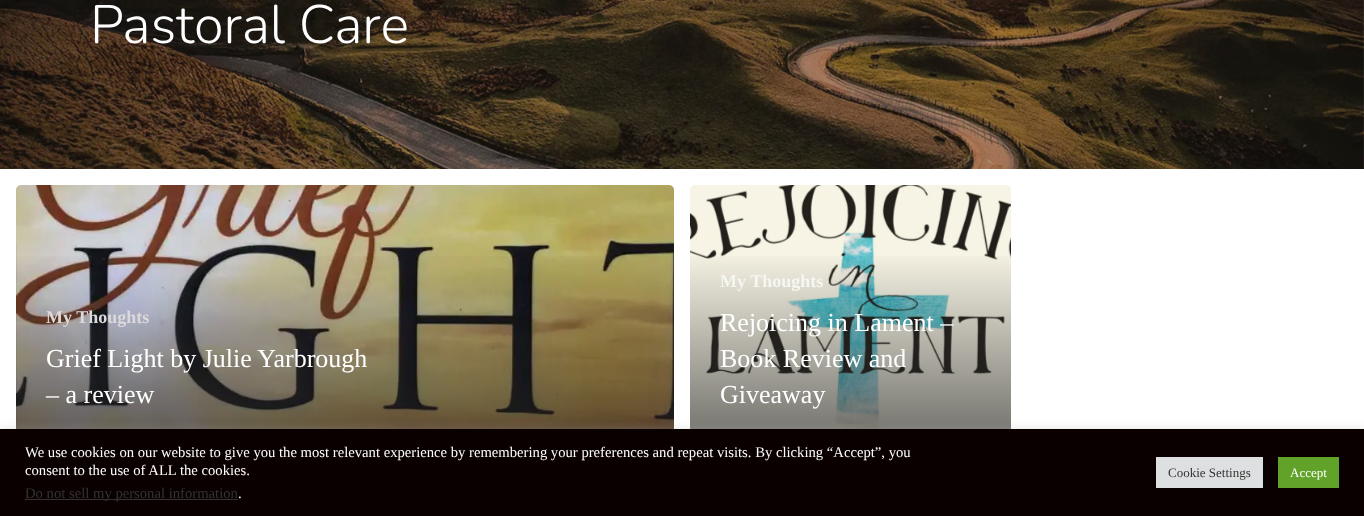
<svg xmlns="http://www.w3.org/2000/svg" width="1364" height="516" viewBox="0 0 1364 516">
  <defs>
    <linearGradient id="g1" gradientUnits="userSpaceOnUse" x1="347" y1="250" x2="347" y2="445"><stop offset="0" stop-color="#232323" stop-opacity="0"/><stop offset="1" stop-color="#232323" stop-opacity="0.65"/></linearGradient>
    <linearGradient id="g2" gradientUnits="userSpaceOnUse" x1="852" y1="250" x2="852" y2="445"><stop offset="0" stop-color="#232323" stop-opacity="0"/><stop offset="1" stop-color="#232323" stop-opacity="0.65"/></linearGradient>
  </defs>
  <rect width="100%" height="100%" fill="#fff"/>
  <image x="0" y="0" width="1364" height="169" href="img/1.png"/>
  <image x="16" y="185" width="658" height="244" href="img/2.png"/>
  <path d="M16 256h658v173H16z" fill="url(#g1)"/>
  <image x="690" y="185" width="321" height="244" href="img/3.png"/>
  <path d="M690 256h321v173H690z" fill="url(#g2)"/>
  <path d="M0 428h1364v87H0z" fill="#acabab4d" filter="blur(5px)"/>
  <path d="M0 429h1364v87H0z" fill="#0a0000"/>
  <path d="M25 499h213v1H25z" fill="#333"/>
  <path d="M1156 457h107v31H1156z" fill="#dedfe0"/>
  <path d="M1278 457h61v31H1278z" fill="#61a229"/>
  <text x="90" y="43" font-family="Nunito" font-size="54" font-weight="300" fill="#fff">Pastoral Care</text>
  <text x="46" y="323" font-family="Liberation Serif" font-size="18" font-weight="bold" fill="#dbd9db">My Thoughts</text>
  <g font-family="Liberation Serif" font-size="26" fill="#fff">
    <text x="46" y="367">Grief Light by Julie Yarbrough</text>
    <text x="46" y="403">– a review</text>
  </g>
  <text x="720" y="287" font-family="Liberation Serif" font-size="18" font-weight="bold" fill="#f6f6f2">My Thoughts</text>
  <g font-family="Liberation Serif" font-size="26" fill="#fff">
    <text x="720" y="331">Rejoicing in Lament –</text>
    <text x="720" y="367">Book Review and</text>
    <text x="720" y="403">Giveaway</text>
  </g>
  <g font-family="Liberation Serif" font-size="14.67" fill="#fff">
    <text x="25" y="457">We use cookies on our website to give you the most relevant experience by remembering your preferences and repeat visits. By clicking “Accept”, you</text>
    <text x="25" y="475">consent to the use of ALL the cookies.</text>
  </g>
  <text x="25" y="498" font-family="Liberation Serif" font-size="14.67" fill="#333">Do not sell my personal information</text>
  <text x="238" y="498" font-family="Liberation Serif" font-size="14.67" fill="#fff">.</text>
  <text x="1168" y="477" font-family="Liberation Serif" font-size="13" fill="#333">Cookie Settings</text>
  <text x="1290" y="477" font-family="Liberation Serif" font-size="13" fill="#fff">Accept</text>
</svg>
